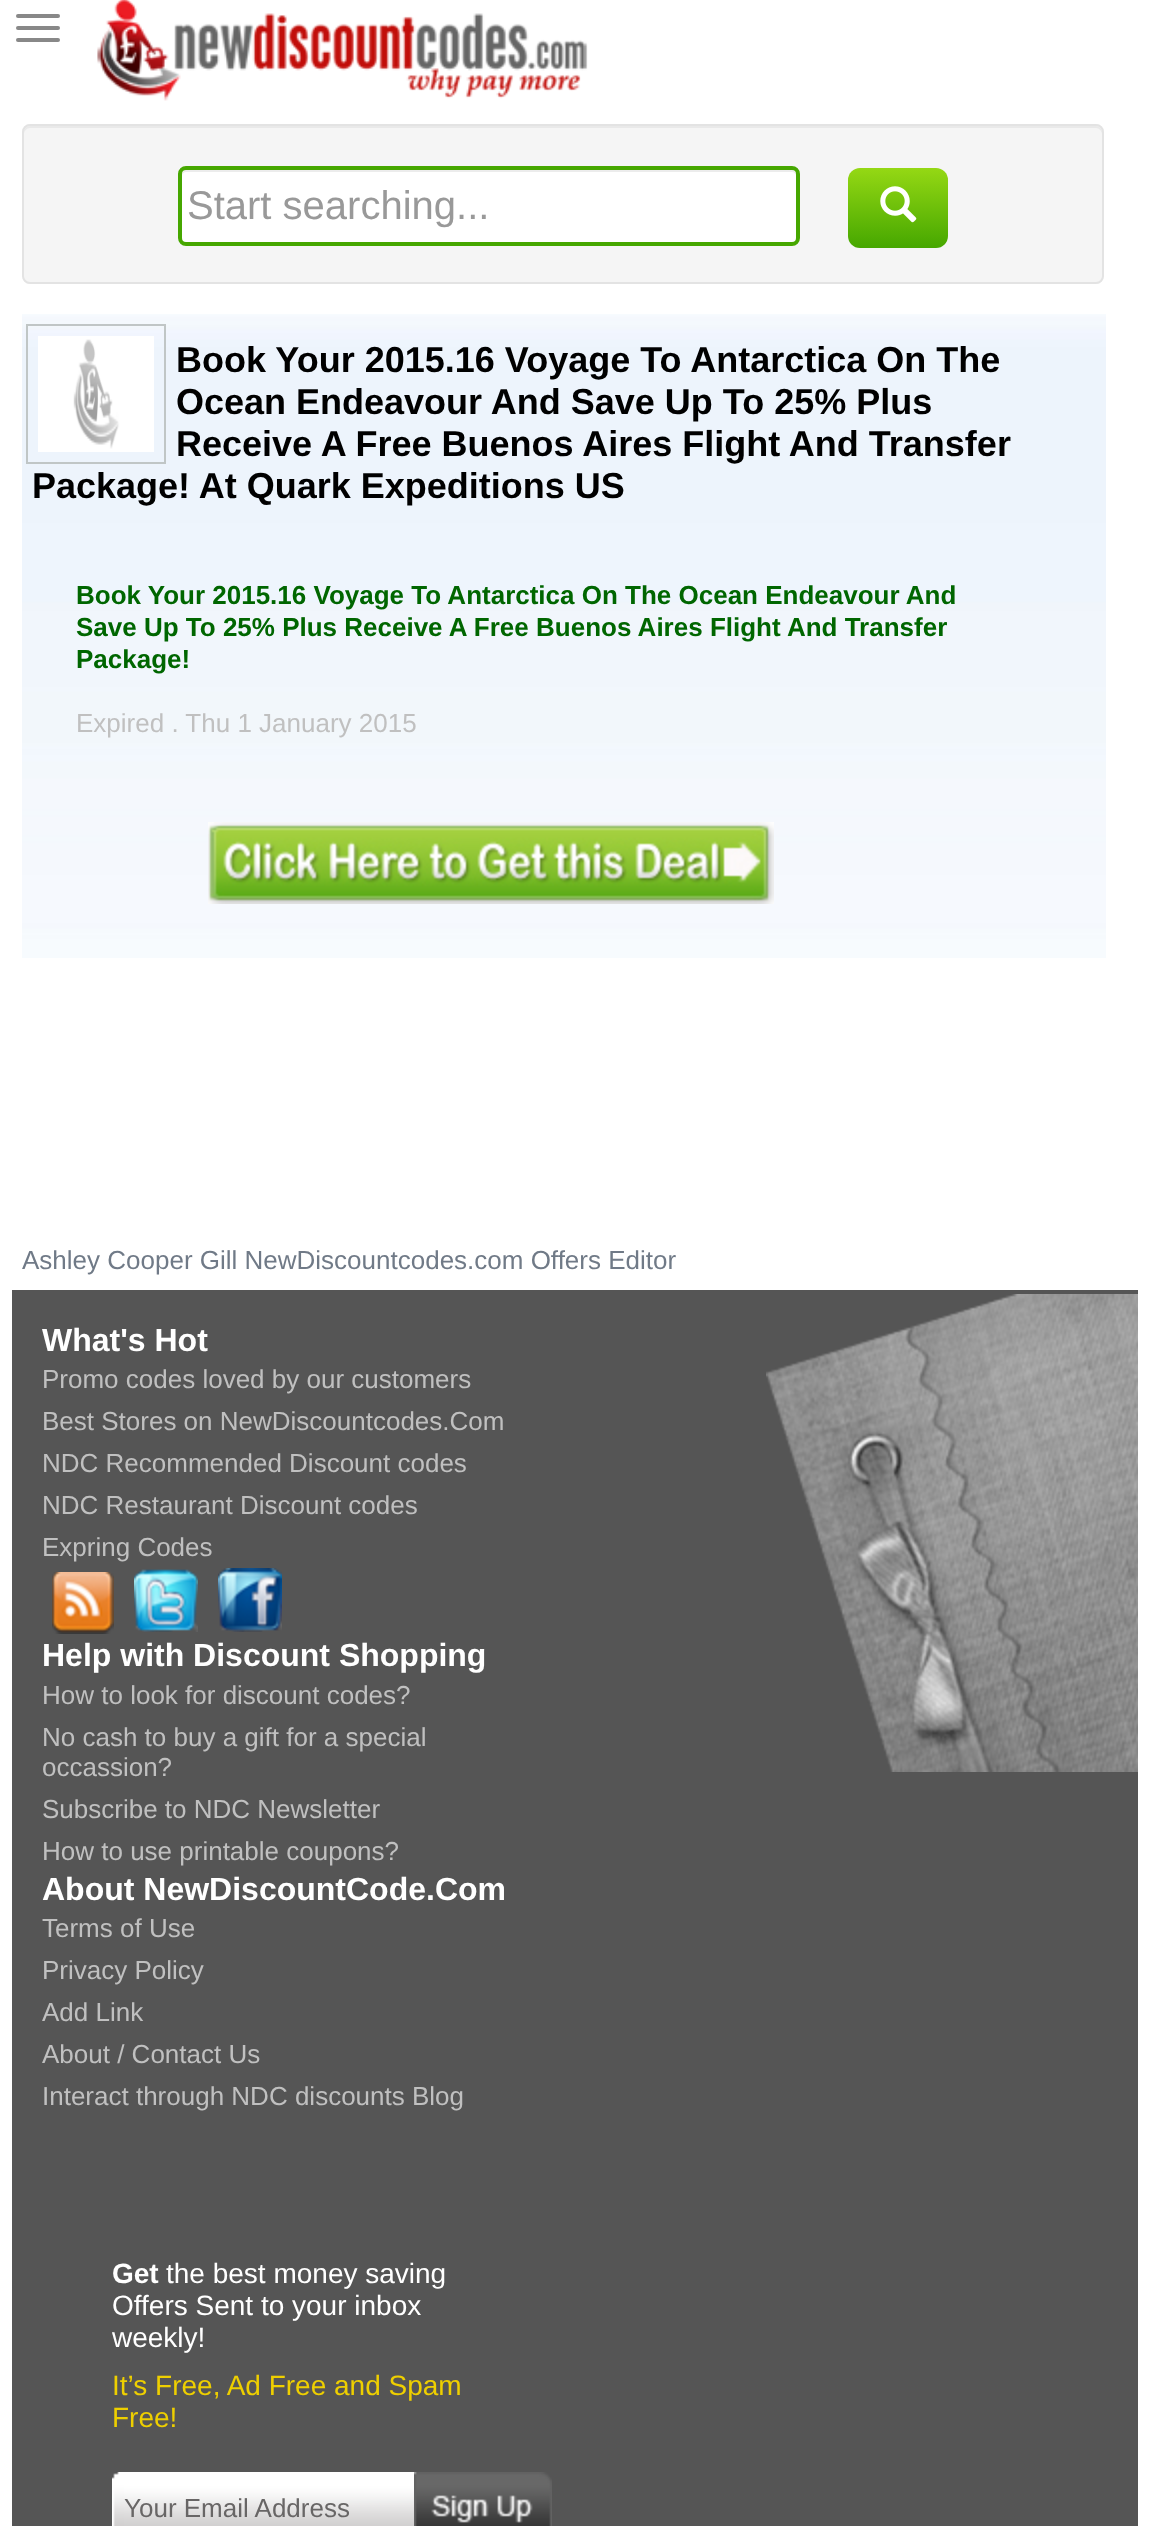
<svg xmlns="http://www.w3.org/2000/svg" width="1149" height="2526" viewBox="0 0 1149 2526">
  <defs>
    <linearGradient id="g1" gradientUnits="userSpaceOnUse" x1="898" y1="168" x2="898" y2="248"><stop offset="0" stop-color="#95d814"/><stop offset="1" stop-color="#46a700"/></linearGradient>
  </defs>
  <rect width="100%" height="100%" fill="#fff"/>
  <rect x="16" y="14" width="44" height="4" rx="2" fill="#888"/>
  <rect x="16" y="26" width="44" height="4" rx="2" fill="#888"/>
  <rect x="16" y="38" width="44" height="4" rx="2" fill="#888"/>
  <image x="97" y="0" width="491" height="101" href="img/1.png"/>
  <rect x="22" y="124" width="1082" height="160" rx="8" fill="#f5f5f5"/>
  <path d="M30 128H1096C1099 128 1102 131 1102 134V132C1102 129 1099 126 1096 126H30C27 126 24 129 24 132V134C24 131 27 128 30 128Z" fill="#e9e9e9"/>
  <rect x="23" y="125" width="1080" height="158" rx="7" fill="none" stroke="#e3e3e3" stroke-width="2"/>
  <rect x="178" y="166" width="622" height="80" rx="8" fill="#fff"/>
  <path d="M186 172H792C794 172 796 174 796 176C796 173 796 170 792 170H184L183 172C182 173 182 175 182 176C182 174 184 172 186 172Z" fill="#ececec"/>
  <rect x="180" y="168" width="618" height="76" rx="6" fill="none" stroke="#46a700" stroke-width="4"/>
  <rect x="848" y="168" width="100" height="80" rx="12" fill="url(#g1)"/>
  <image x="880" y="186" width="37" height="37" href="img/2.png"/>
  <image x="22" y="314" width="1084" height="644" href="img/3.png"/>
  <path d="M27 325h138v138H27z" fill="none" stroke="#c0c6c6" stroke-width="2"/>
  <image x="38" y="336" width="116" height="116" href="img/4.png"/>
  <image x="208" y="822" width="566" height="82" href="img/5.png"/>
  <path d="M12 1290h1126v1236H12z" fill="#555"/>
  <image x="52" y="1572" width="62" height="62" href="img/6.png"/>
  <image x="134" y="1569" width="64" height="63" href="img/7.png"/>
  <image x="218" y="1568" width="64" height="64" href="img/8.png"/>
  <image x="766" y="1294" width="372" height="478" href="img/9.png"/>
  <image x="112" y="2472" width="12" height="54" href="img/10.png"/>
  <image x="124" y="2472" width="290" height="54" href="img/11.png"/>
  <image x="414" y="2472" width="138" height="54" href="img/12.png"/>
  <text x="187" y="219" font-family="Liberation Sans" font-size="40" fill="#999">Start searching...</text>
  <g font-family="Liberation Sans" font-size="36" font-weight="bold" fill="#000">
    <text x="176" y="372">Book Your 2015.16 Voyage To Antarctica On The</text>
    <text x="176" y="414">Ocean Endeavour And Save Up To 25% Plus</text>
    <text x="176" y="456">Receive A Free Buenos Aires Flight And Transfer</text>
    <text x="32" y="498">Package! At Quark Expeditions US</text>
  </g>
  <g font-family="Liberation Sans" font-size="26" font-weight="bold" fill="#060">
    <text x="76" y="604">Book Your 2015.16 Voyage To Antarctica On The Ocean Endeavour And</text>
    <text x="76" y="636">Save Up To 25% Plus Receive A Free Buenos Aires Flight And Transfer</text>
    <text x="76" y="668">Package!</text>
  </g>
  <text x="76" y="732" font-family="Liberation Sans" font-size="26" fill="#c0c0c0">Expired . Thu 1 January 2015</text>
  <text x="22" y="1269" font-family="Liberation Sans" font-size="26" fill="#707a87">Ashley Cooper Gill NewDiscountcodes.com Offers Editor</text>
  <text x="42" y="1351" font-family="Liberation Sans" font-size="32" font-weight="bold" fill="#fff">What's Hot</text>
  <g font-family="Liberation Sans" font-size="26" fill="#c0c0c0">
    <text x="42" y="1388">Promo codes loved by our customers</text>
    <text x="42" y="1430">Best Stores on NewDiscountcodes.Com</text>
    <text x="42" y="1472">NDC Recommended Discount codes</text>
    <text x="42" y="1514">NDC Restaurant Discount codes</text>
    <text x="42" y="1556">Expring Codes</text>
  </g>
  <text x="42" y="1666" font-family="Liberation Sans" font-size="32" font-weight="bold" fill="#fff">Help with Discount Shopping</text>
  <g font-family="Liberation Sans" font-size="26" fill="#c0c0c0">
    <text x="42" y="1704">How to look for discount codes?</text>
    <text x="42" y="1746">No cash to buy a gift for a special</text>
    <text x="42" y="1776">occassion?</text>
    <text x="42" y="1818">Subscribe to NDC Newsletter</text>
    <text x="42" y="1860">How to use printable coupons?</text>
  </g>
  <text x="42" y="1900" font-family="Liberation Sans" font-size="32" font-weight="bold" fill="#fff">About NewDiscountCode.Com</text>
  <g font-family="Liberation Sans" font-size="26" fill="#c0c0c0">
    <text x="42" y="1937">Terms of Use</text>
    <text x="42" y="1979">Privacy Policy</text>
    <text x="42" y="2021">Add Link</text>
    <text x="42" y="2063">About / Contact Us</text>
    <text x="42" y="2105">Interact through NDC discounts Blog</text>
  </g>
  <text x="112" y="2283" font-family="Liberation Sans" font-size="28" font-weight="bold" fill="#fff">Get</text>
  <g font-family="Liberation Sans" font-size="28" fill="#fff">
    <text x="166" y="2283">the best money saving</text>
    <text x="112" y="2315">Offers Sent to your inbox</text>
    <text x="112" y="2347">weekly!</text>
  </g>
  <g font-family="Liberation Sans" font-size="28" fill="#eecf00">
    <text x="112" y="2395">It’s Free, Ad Free and Spam</text>
    <text x="112" y="2427">Free!</text>
  </g>
  <text x="124" y="2517" font-family="Liberation Sans" font-size="26" fill="#686666">Your Email Address</text>
</svg>
